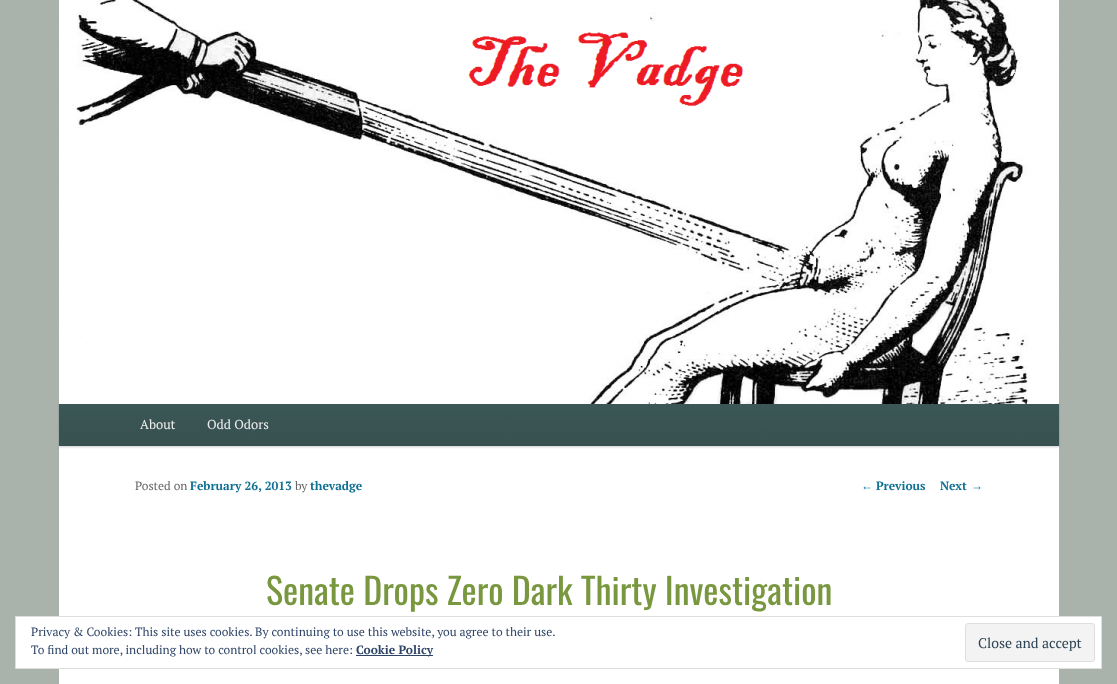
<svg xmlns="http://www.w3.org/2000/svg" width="1117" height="684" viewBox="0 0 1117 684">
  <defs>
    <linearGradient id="g1" gradientUnits="userSpaceOnUse" x1="559" y1="403" x2="559" y2="446"><stop offset="0" stop-color="#3c5757"/><stop offset="1" stop-color="#375050"/></linearGradient>
  </defs>
  <rect width="100%" height="100%" fill="#aab3ab"/>
  <path d="M59 446h1000v238H59z" fill="#fff"/>
  <path d="M59 404h1000v43H59z" fill="#00000033" filter="blur(1px)"/>
  <image x="59" y="0" width="1000" height="404" href="img/1.png"/>
  <path d="M59 404h1000v42H59z" fill="url(#g1)"/>
  <path d="M15.5 616.5h1086v52H15.5z" fill="#fff" stroke="#dedede"/>
  <path d="M356 655h77v1H356z" fill="#2e4467"/>
  <rect x="965.5" y="623.5" width="129" height="38" rx="2.5" fill="#f3f3f3" stroke="#dedede"/>
  <g font-family="PT Serif" font-size="13" fill="#eee">
    <text x="140" y="429">About</text>
    <text x="207" y="429">Odd Odors</text>
  </g>
  <text x="135" y="490" font-family="PT Serif" font-size="12" fill="#666">Posted on</text>
  <text x="190" y="490" font-family="PT Serif" font-size="12" font-weight="bold" fill="#0f7093">February 26, 2013</text>
  <text x="295" y="490" font-family="PT Serif" font-size="12" fill="#666">by</text>
  <text x="310" y="490" font-family="PT Serif" font-size="12" font-weight="bold" fill="#0f7093">thevadge</text>
  <text x="266" y="605" font-family="Oswald" font-size="36" fill="#78973f">Senate Drops Zero Dark Thirty Investigation</text>
  <text x="861" y="490" font-family="Liberation Serif" font-size="12" fill="#0f7093">←</text>
  <g font-family="PT Serif" font-size="12" font-weight="bold" fill="#0f7093">
    <text x="876" y="490">Previous</text>
    <text x="940" y="490">Next</text>
  </g>
  <text x="971" y="490" font-family="Liberation Serif" font-size="12" fill="#0f7093">→</text>
  <g font-family="PT Serif" font-size="12" fill="#2e4467">
    <text x="31" y="636">Privacy &amp; Cookies: This site uses cookies. By continuing to use this website, you agree to their use.</text>
    <text x="31" y="654">To find out more, including how to control cookies, see here:</text>
  </g>
  <text x="356" y="654" font-family="PT Serif" font-size="12" font-weight="bold" fill="#2e4467">Cookie Policy</text>
  <text x="978" y="648" font-family="PT Serif" font-size="14" fill="#2e4453">Close and accept</text>
</svg>
